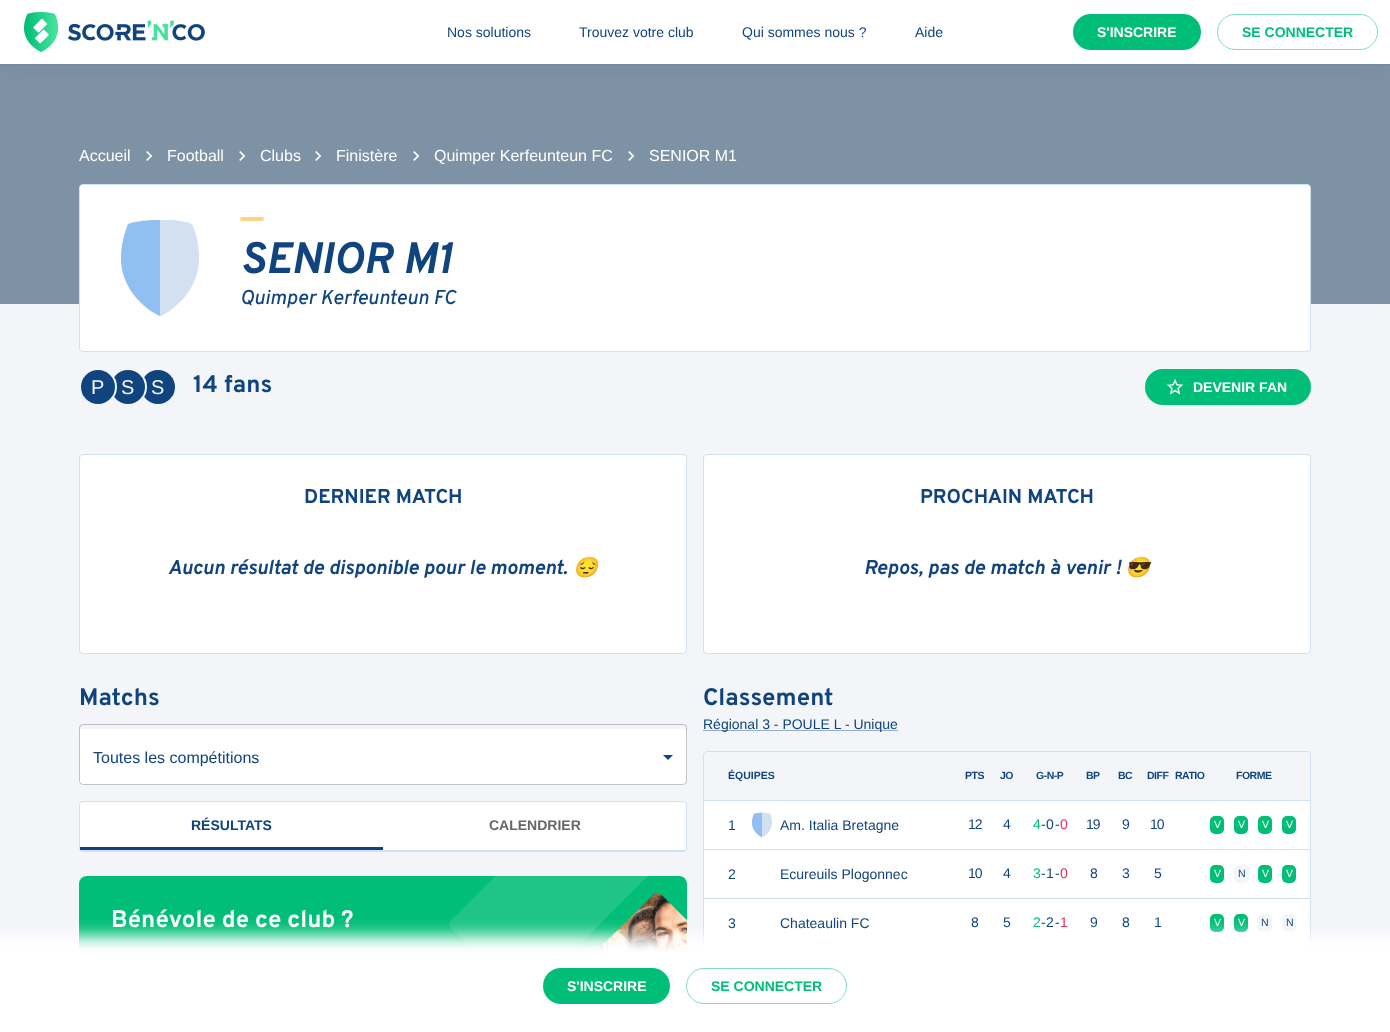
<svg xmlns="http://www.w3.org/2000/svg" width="1390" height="1032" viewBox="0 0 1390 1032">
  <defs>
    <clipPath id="clip1"><path d="M112 220h96v96H112z"/></clipPath>
  </defs>
  <rect width="100%" height="100%" fill="#f3f5f9"/>
  <path d="M0 64h1390v240H0z" fill="#7e92a5"/>
  <path d="M0 0h1390v64H0z" fill="#10447f1a" filter="blur(1px)"/>
  <path d="M0 0h1390v64H0z" fill="#10447f1a" filter="blur(12px)"/>
  <path d="M0 0h1390v64H0z" fill="#fff"/>
  <image x="24" y="12" width="181" height="40" href="img/1.png"/>
  <rect x="1073" y="14" width="128" height="36" rx="18" fill="#00be77"/>
  <rect x="1217.5" y="14.5" width="160" height="35" rx="17.5" fill="none" stroke="#80dfbb"/>
  <image x="146" y="151" width="7" height="10" href="img/2.png"/>
  <image x="239" y="151" width="7" height="10" href="img/2.png"/>
  <image x="315" y="151" width="7" height="10" href="img/2.png"/>
  <image x="413" y="151" width="7" height="10" href="img/2.png"/>
  <image x="628" y="151" width="7" height="10" href="img/2.png"/>
  <rect x="79.5" y="184.5" width="1231" height="167" rx="3.5" fill="#fff" stroke="#d2e0ef"/>
  <g clip-path="url(#clip1)">
    <path d="M128 224C128 224 121 241 121 258C121 295 153 313 159 316H161C167 313 199 295 199 258C199 238 192 224 192 224C176 218 144 218 128 224" fill="#d2e0ef" fill-rule="evenodd"/>
  </g>
  <path d="M121 258C121 280 133 298 151 311L160 316V220C140 220 128 224 128 224C128 224 121 241 121 258Z" fill="#92bff2" fill-rule="evenodd"/>
  <rect x="240" y="217" width="24" height="4" rx="2" fill="#fed385"/>
  <circle cx="158" cy="387" r="18" fill="#10447f" stroke="#f3f5f9" stroke-width="2"/>
  <circle cx="128" cy="387" r="18" fill="#10447f" stroke="#f3f5f9" stroke-width="2"/>
  <circle cx="98" cy="387" r="18" fill="#10447f" stroke="#f3f5f9" stroke-width="2"/>
  <rect x="1145" y="369" width="166" height="36" rx="18" fill="#00be77"/>
  <image x="1166" y="378" width="18" height="17" href="img/3.png"/>
  <rect x="79.5" y="454.5" width="607" height="199" rx="3.5" fill="#fff" stroke="#d2e0ef"/>
  <rect x="703.5" y="454.5" width="607" height="199" rx="3.5" fill="#fff" stroke="#d2e0ef"/>
  <rect x="79" y="729" width="608" height="56" rx="4" fill="#fff"/>
  <path d="M663 755L668 760L673 755Z" fill="#10447f"/>
  <rect x="79.5" y="724.5" width="607" height="60" rx="3.5" fill="none" stroke="#0000003b"/>
  <rect x="79.5" y="801.5" width="607" height="50" rx="3.5" fill="#fff" stroke="#d2e0ef"/>
  <path d="M80 850h606v1H80z" fill="#d2e0ef"/>
  <path d="M80 847h303v3H80z" fill="#10447f"/>
  <rect x="79" y="876" width="608" height="143" rx="8" fill="#00be77"/>
  <image x="449" y="876" width="238" height="76" href="img/4.png"/>
  <path d="M703 730h195v1H703z" fill="#98aec8"/>
  <rect x="703.5" y="751.5" width="607" height="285" rx="3.5" fill="#fff" stroke="#d2e0ef"/>
  <path d="M707 752H1307C1308.5 752 1310 753.5 1310 755V800H704V755C704 753.5 705.5 752 707 752Z" fill="#f3f5f9"/>
  <path d="M704 800h606v1H704z" fill="#d2e0ef"/>
  <image x="752" y="812" width="20" height="26" href="img/5.png"/>
  <path d="M704 849h606v1H704z" fill="#d2e0ef"/>
  <path d="M704 898h606v1H704z" fill="#d2e0ef"/>
  <rect x="1210" y="816" width="14" height="18" rx="5" fill="#00be77"/>
  <rect x="1234" y="816" width="14" height="18" rx="5" fill="#00be77"/>
  <rect x="1258" y="816" width="14" height="18" rx="5" fill="#00be77"/>
  <rect x="1282" y="816" width="14" height="18" rx="5" fill="#00be77"/>
  <rect x="1210" y="865" width="14" height="18" rx="5" fill="#00be77"/>
  <rect x="1234" y="865" width="15" height="18" rx="5" fill="#f3f5f9"/>
  <rect x="1258" y="865" width="14" height="18" rx="5" fill="#00be77"/>
  <rect x="1282" y="865" width="14" height="18" rx="5" fill="#00be77"/>
  <rect x="1210" y="914" width="14" height="18" rx="5" fill="#00be77"/>
  <rect x="1234" y="914" width="14" height="18" rx="5" fill="#00be77"/>
  <rect x="1257" y="914" width="15" height="18" rx="5" fill="#f3f5f9"/>
  <rect x="1282" y="914" width="14" height="18" rx="5" fill="#f3f5f9"/>
  <path d="M-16 936h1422v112H-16z" fill="#fff" filter="blur(8px)"/>
  <path d="M79 952h608v3H79z" fill="#fff"/>
  <rect x="543" y="968" width="127" height="36" rx="18" fill="#00be77"/>
  <rect x="686.5" y="968.5" width="160" height="35" rx="17.5" fill="none" stroke="#80dfbb"/>
  <g font-family="Liberation Sans" font-size="14" fill="#10447f">
    <text x="447" y="37">Nos solutions</text>
    <text x="579" y="37">Trouvez votre club</text>
    <text x="742" y="37">Qui sommes nous ?</text>
    <text x="915" y="37">Aide</text>
  </g>
  <text x="1097" y="37" font-family="Liberation Sans" font-size="14" font-weight="bold" fill="#fff">S'INSCRIRE</text>
  <text x="1242" y="37" font-family="Liberation Sans" font-size="14" font-weight="bold" fill="#00be77">SE CONNECTER</text>
  <g font-family="Liberation Sans" font-size="16" fill="#fff">
    <text x="79" y="161">Accueil</text>
    <text x="167" y="161">Football</text>
    <text x="260" y="161">Clubs</text>
    <text x="336" y="161">Finistère</text>
    <text x="434" y="161">Quimper Kerfeunteun FC</text>
    <text x="649" y="161">SENIOR M1</text>
  </g>
  <text x="240" y="273" font-family="Overpass" font-size="44" font-weight="bold" font-style="italic" fill="#10447f">SENIOR M1</text>
  <text x="240" y="304" font-family="Overpass" font-size="20" font-weight="500" font-style="italic" fill="#10447f">Quimper Kerfeunteun FC</text>
  <g font-family="Liberation Sans" font-size="20" fill="#f3f5f9">
    <text x="91" y="394">P</text>
    <text x="121" y="394">S</text>
    <text x="151" y="394">S</text>
  </g>
  <text x="193" y="392" font-family="Overpass" font-size="24" font-weight="bold" fill="#10447f">14 fans</text>
  <text x="1193" y="392" font-family="Liberation Sans" font-size="14" font-weight="bold" fill="#fff">DEVENIR FAN</text>
  <text x="304" y="503" font-family="Overpass" font-size="20" font-weight="bold" fill="#10447f">DERNIER MATCH</text>
  <text x="168" y="574" font-family="Overpass" font-size="20" font-weight="bold" font-style="italic" fill="#10447f">Aucun résultat de disponible pour le moment.</text>
  <text x="573" y="574" font-family="Noto Color Emoji" font-size="20" font-weight="bold" font-style="italic" fill="#10447f">😔</text>
  <text x="920" y="503" font-family="Overpass" font-size="20" font-weight="bold" fill="#10447f">PROCHAIN MATCH</text>
  <text x="864" y="574" font-family="Overpass" font-size="20" font-weight="bold" font-style="italic" fill="#10447f">Repos, pas de match à venir !</text>
  <text x="1125" y="574" font-family="Noto Color Emoji" font-size="20" font-weight="bold" font-style="italic" fill="#10447f">😎</text>
  <text x="79" y="705" font-family="Overpass" font-size="24" font-weight="bold" fill="#10447f">Matchs</text>
  <text x="93" y="763" font-family="Liberation Sans" font-size="16" fill="#10447f">Toutes les compétitions</text>
  <text x="191" y="830" font-family="Liberation Sans" font-size="14" font-weight="bold" fill="#10447f">RÉSULTATS</text>
  <text x="489" y="830" font-family="Liberation Sans" font-size="14" font-weight="bold" fill="#666">CALENDRIER</text>
  <text x="111" y="927" font-family="Overpass" font-size="24" font-weight="bold" fill="#fff">Bénévole de ce club ?</text>
  <text x="703" y="705" font-family="Overpass" font-size="24" font-weight="bold" fill="#10447f">Classement</text>
  <text x="703" y="729" font-family="Liberation Sans" font-size="14" fill="#10447f">Régional 3 - POULE L - Unique</text>
  <text x="728" y="779" font-family="Liberation Sans" font-size="10.5" font-weight="bold" fill="#10447f">ÉQUIPES</text>
  <g font-family="Liberation Sans" font-size="14" fill="#10447f">
    <text x="728" y="830">1</text>
    <text x="780" y="830">Am. Italia Bretagne</text>
    <text x="728" y="879">2</text>
    <text x="780" y="879">Ecureuils Plogonnec</text>
    <text x="728" y="928">3</text>
    <text x="780" y="928">Chateaulin FC</text>
  </g>
  <g font-family="Liberation Sans" font-size="10.5" font-weight="bold" letter-spacing="-0.5" fill="#10447f">
    <text x="965" y="779">PTS</text>
    <text x="1000" y="779">JO</text>
    <text x="1036" y="779">G-N-P</text>
    <text x="1086" y="779">BP</text>
    <text x="1118" y="779">BC</text>
    <text x="1147" y="779">DIFF</text>
    <text x="1175" y="779">RATIO</text>
    <text x="1236" y="779">FORME</text>
  </g>
  <g font-family="Liberation Sans" font-size="14" letter-spacing="-1" fill="#10447f">
    <text x="968" y="829">12</text>
    <text x="1003" y="829">4</text>
  </g>
  <text x="1033" y="829" font-family="Liberation Sans" font-size="14" letter-spacing="-1" fill="#00be77">4</text>
  <g font-family="Liberation Sans" font-size="14" letter-spacing="-1" fill="#10447f">
    <text x="1041" y="829">-</text>
    <text x="1046" y="829">0</text>
    <text x="1055" y="829">-</text>
  </g>
  <text x="1060" y="829" font-family="Liberation Sans" font-size="14" letter-spacing="-1" fill="#e42f59">0</text>
  <g font-family="Liberation Sans" font-size="14" letter-spacing="-1" fill="#10447f">
    <text x="1086" y="829">19</text>
    <text x="1122" y="829">9</text>
    <text x="1150" y="829">10</text>
  </g>
  <g font-family="Liberation Sans" font-size="10.5" letter-spacing="-1" fill="#fff">
    <text x="1214" y="828">V</text>
    <text x="1238" y="828">V</text>
    <text x="1262" y="828">V</text>
    <text x="1286" y="828">V</text>
  </g>
  <g font-family="Liberation Sans" font-size="14" letter-spacing="-1" fill="#10447f">
    <text x="968" y="878">10</text>
    <text x="1003" y="878">4</text>
  </g>
  <text x="1033" y="878" font-family="Liberation Sans" font-size="14" letter-spacing="-1" fill="#00be77">3</text>
  <g font-family="Liberation Sans" font-size="14" letter-spacing="-1" fill="#10447f">
    <text x="1041" y="878">-</text>
    <text x="1046" y="878">1</text>
    <text x="1055" y="878">-</text>
  </g>
  <text x="1060" y="878" font-family="Liberation Sans" font-size="14" letter-spacing="-1" fill="#e42f59">0</text>
  <g font-family="Liberation Sans" font-size="14" letter-spacing="-1" fill="#10447f">
    <text x="1090" y="878">8</text>
    <text x="1122" y="878">3</text>
    <text x="1154" y="878">5</text>
  </g>
  <text x="1214" y="877" font-family="Liberation Sans" font-size="10.5" letter-spacing="-1" fill="#fff">V</text>
  <text x="1238" y="877" font-family="Liberation Sans" font-size="10.5" letter-spacing="-1" fill="#10447f">N</text>
  <g font-family="Liberation Sans" font-size="10.5" letter-spacing="-1" fill="#fff">
    <text x="1262" y="877">V</text>
    <text x="1286" y="877">V</text>
  </g>
  <g font-family="Liberation Sans" font-size="14" letter-spacing="-1" fill="#10447f">
    <text x="971" y="927">8</text>
    <text x="1003" y="927">5</text>
  </g>
  <text x="1033" y="927" font-family="Liberation Sans" font-size="14" letter-spacing="-1" fill="#00be77">2</text>
  <g font-family="Liberation Sans" font-size="14" letter-spacing="-1" fill="#10447f">
    <text x="1041" y="927">-</text>
    <text x="1046" y="927">2</text>
    <text x="1055" y="927">-</text>
  </g>
  <text x="1060" y="927" font-family="Liberation Sans" font-size="14" letter-spacing="-1" fill="#e42f59">1</text>
  <g font-family="Liberation Sans" font-size="14" letter-spacing="-1" fill="#10447f">
    <text x="1090" y="927">9</text>
    <text x="1122" y="927">8</text>
    <text x="1154" y="927">1</text>
  </g>
  <g font-family="Liberation Sans" font-size="10.5" letter-spacing="-1" fill="#fff">
    <text x="1214" y="926">V</text>
    <text x="1238" y="926">V</text>
  </g>
  <g font-family="Liberation Sans" font-size="10.5" letter-spacing="-1" fill="#10447f">
    <text x="1261" y="926">N</text>
    <text x="1286" y="926">N</text>
  </g>
  <text x="567" y="991" font-family="Liberation Sans" font-size="14" font-weight="bold" fill="#fff">S'INSCRIRE</text>
  <text x="711" y="991" font-family="Liberation Sans" font-size="14" font-weight="bold" fill="#00be77">SE CONNECTER</text>
</svg>
